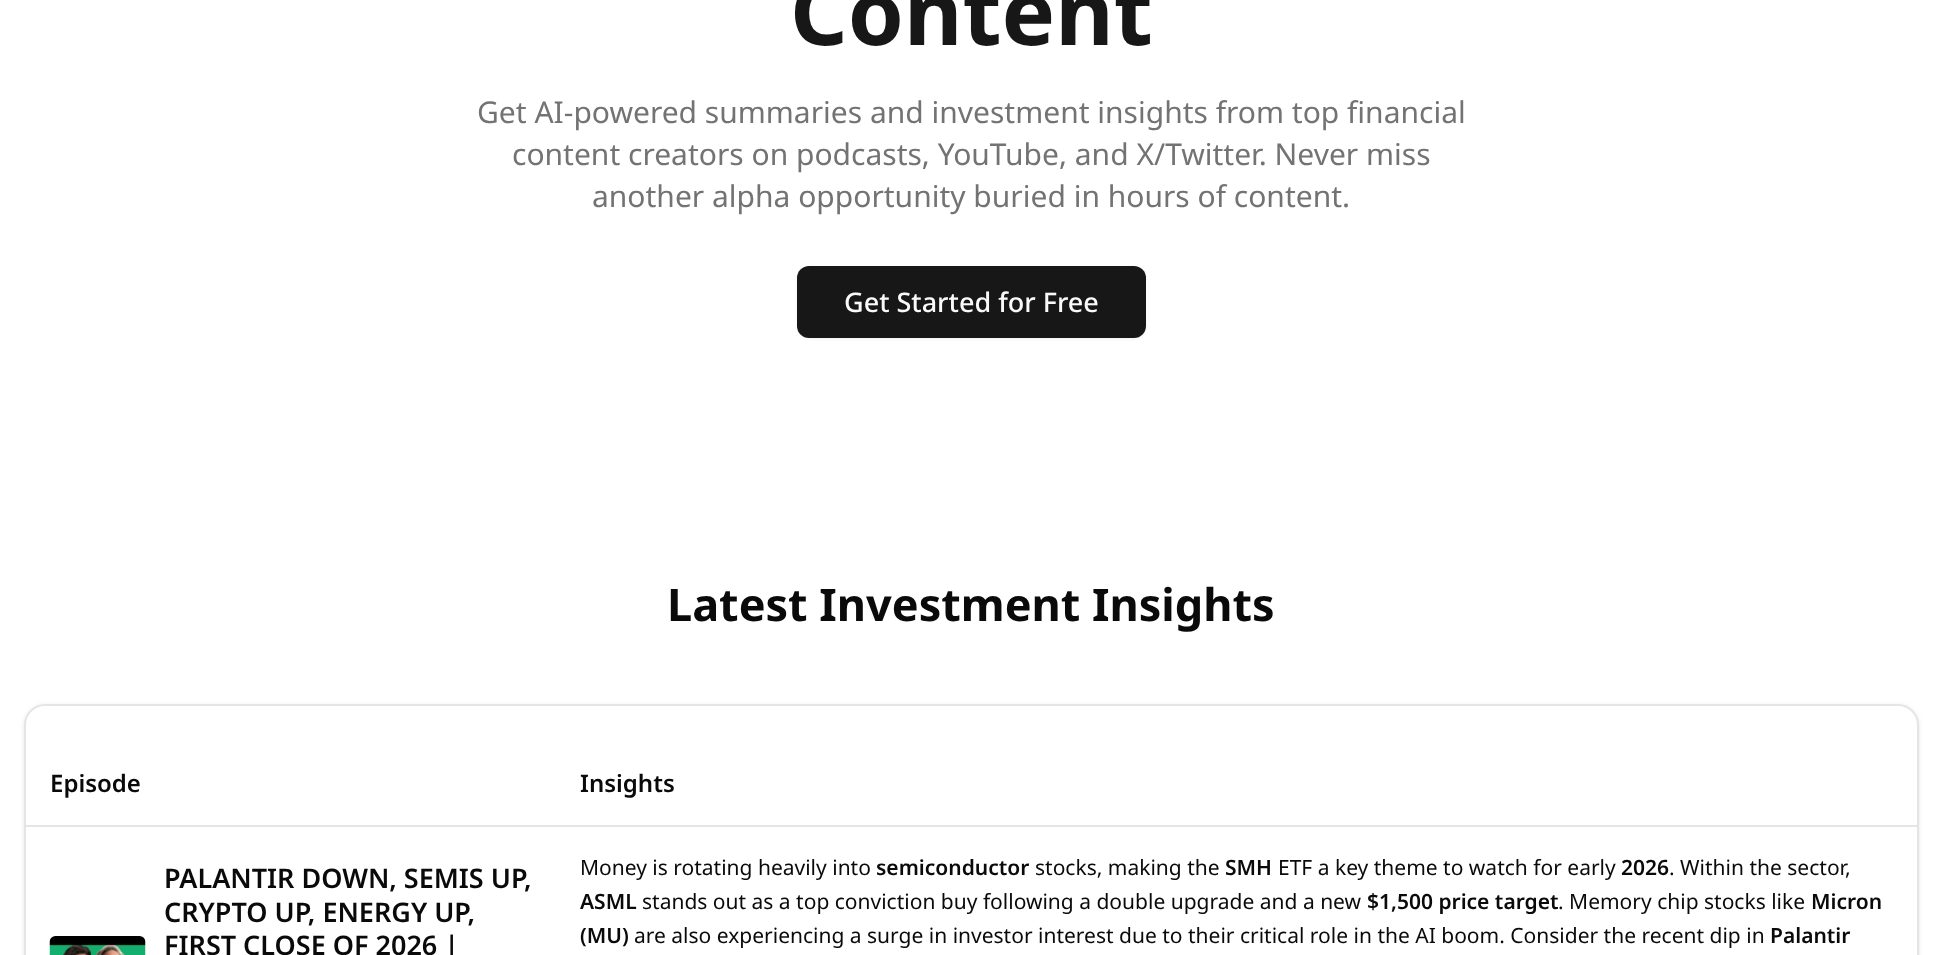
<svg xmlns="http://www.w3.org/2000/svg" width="1942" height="955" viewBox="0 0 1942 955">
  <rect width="100%" height="100%" fill="#fff"/>
  <rect x="797" y="267" width="349" height="72" rx="12" fill="#0000000d" filter="blur(1.5px)"/>
  <rect x="797" y="266" width="349" height="72" rx="12" fill="#171717"/>
  <rect x="24" y="705" width="1895" height="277" rx="21" fill="#0000001a" filter="blur(2px)"/>
  <rect x="25" y="705" width="1893" height="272" rx="20" fill="#fff" stroke="#e5e5e5" stroke-width="2"/>
  <path d="M26 825h1891v2H26z" fill="#e5e5e5"/>
  <image x="49" y="936" width="97" height="19" href="img/1.png"/>
  <text x="790" y="45" font-family="Noto Sans" font-size="90" font-weight="bold" fill="#171717">Content</text>
  <g font-family="Noto Sans" font-size="30" fill="#737373">
    <text x="477" y="123">Get AI-powered summaries and investment insights from top financial</text>
    <text x="512" y="165">content creators on podcasts, YouTube, and X/Twitter. Never miss</text>
    <text x="592" y="207">another alpha opportunity buried in hours of content.</text>
  </g>
  <text x="844" y="312" font-family="Noto Sans" font-size="27" font-weight="500" fill="#fafafa">Get Started for Free</text>
  <text x="667" y="621" font-family="Noto Sans" font-size="45" font-weight="bold" fill="#0a0a0a">Latest Investment Insights</text>
  <g font-family="Noto Sans" font-size="24" font-weight="600" fill="#0a0a0a">
    <text x="50" y="792">Episode</text>
    <text x="580" y="792">Insights</text>
  </g>
  <g font-family="Noto Sans" font-size="27" font-weight="600" fill="#0a0a0a">
    <text x="164" y="888">PALANTIR DOWN, SEMIS UP,</text>
    <text x="164" y="922">CRYPTO UP, ENERGY UP,</text>
    <text x="164" y="955">FIRST CLOSE OF 2026 |</text>
  </g>
  <text x="580" y="875" font-family="Noto Sans" font-size="21" fill="#0a0a0a">Money is rotating heavily into</text>
  <text x="876" y="875" font-family="Noto Sans" font-size="21" font-weight="600" fill="#0a0a0a">semiconductor</text>
  <text x="1035" y="875" font-family="Noto Sans" font-size="21" fill="#0a0a0a">stocks, making the</text>
  <text x="1225" y="875" font-family="Noto Sans" font-size="21" font-weight="600" fill="#0a0a0a">SMH</text>
  <text x="1278" y="875" font-family="Noto Sans" font-size="21" fill="#0a0a0a">ETF a key theme to watch for early</text>
  <text x="1621" y="875" font-family="Noto Sans" font-size="21" font-weight="600" fill="#0a0a0a">2026</text>
  <text x="1669" y="875" font-family="Noto Sans" font-size="21" fill="#0a0a0a">. Within the sector,</text>
  <text x="580" y="909" font-family="Noto Sans" font-size="21" font-weight="600" fill="#0a0a0a">ASML</text>
  <text x="642" y="909" font-family="Noto Sans" font-size="21" fill="#0a0a0a">stands out as a top conviction buy following a double upgrade and a new</text>
  <text x="1367" y="909" font-family="Noto Sans" font-size="21" font-weight="600" fill="#0a0a0a">$1,500 price target</text>
  <text x="1558" y="909" font-family="Noto Sans" font-size="21" fill="#0a0a0a">. Memory chip stocks like</text>
  <g font-family="Noto Sans" font-size="21" font-weight="600" fill="#0a0a0a">
    <text x="1811" y="909">Micron</text>
    <text x="580" y="943">(MU)</text>
  </g>
  <text x="634" y="943" font-family="Noto Sans" font-size="21" fill="#0a0a0a">are also experiencing a surge in investor interest due to their critical role in the AI boom. Consider the recent dip in</text>
  <text x="1770" y="943" font-family="Noto Sans" font-size="21" font-weight="600" fill="#0a0a0a">Palantir</text>
</svg>
